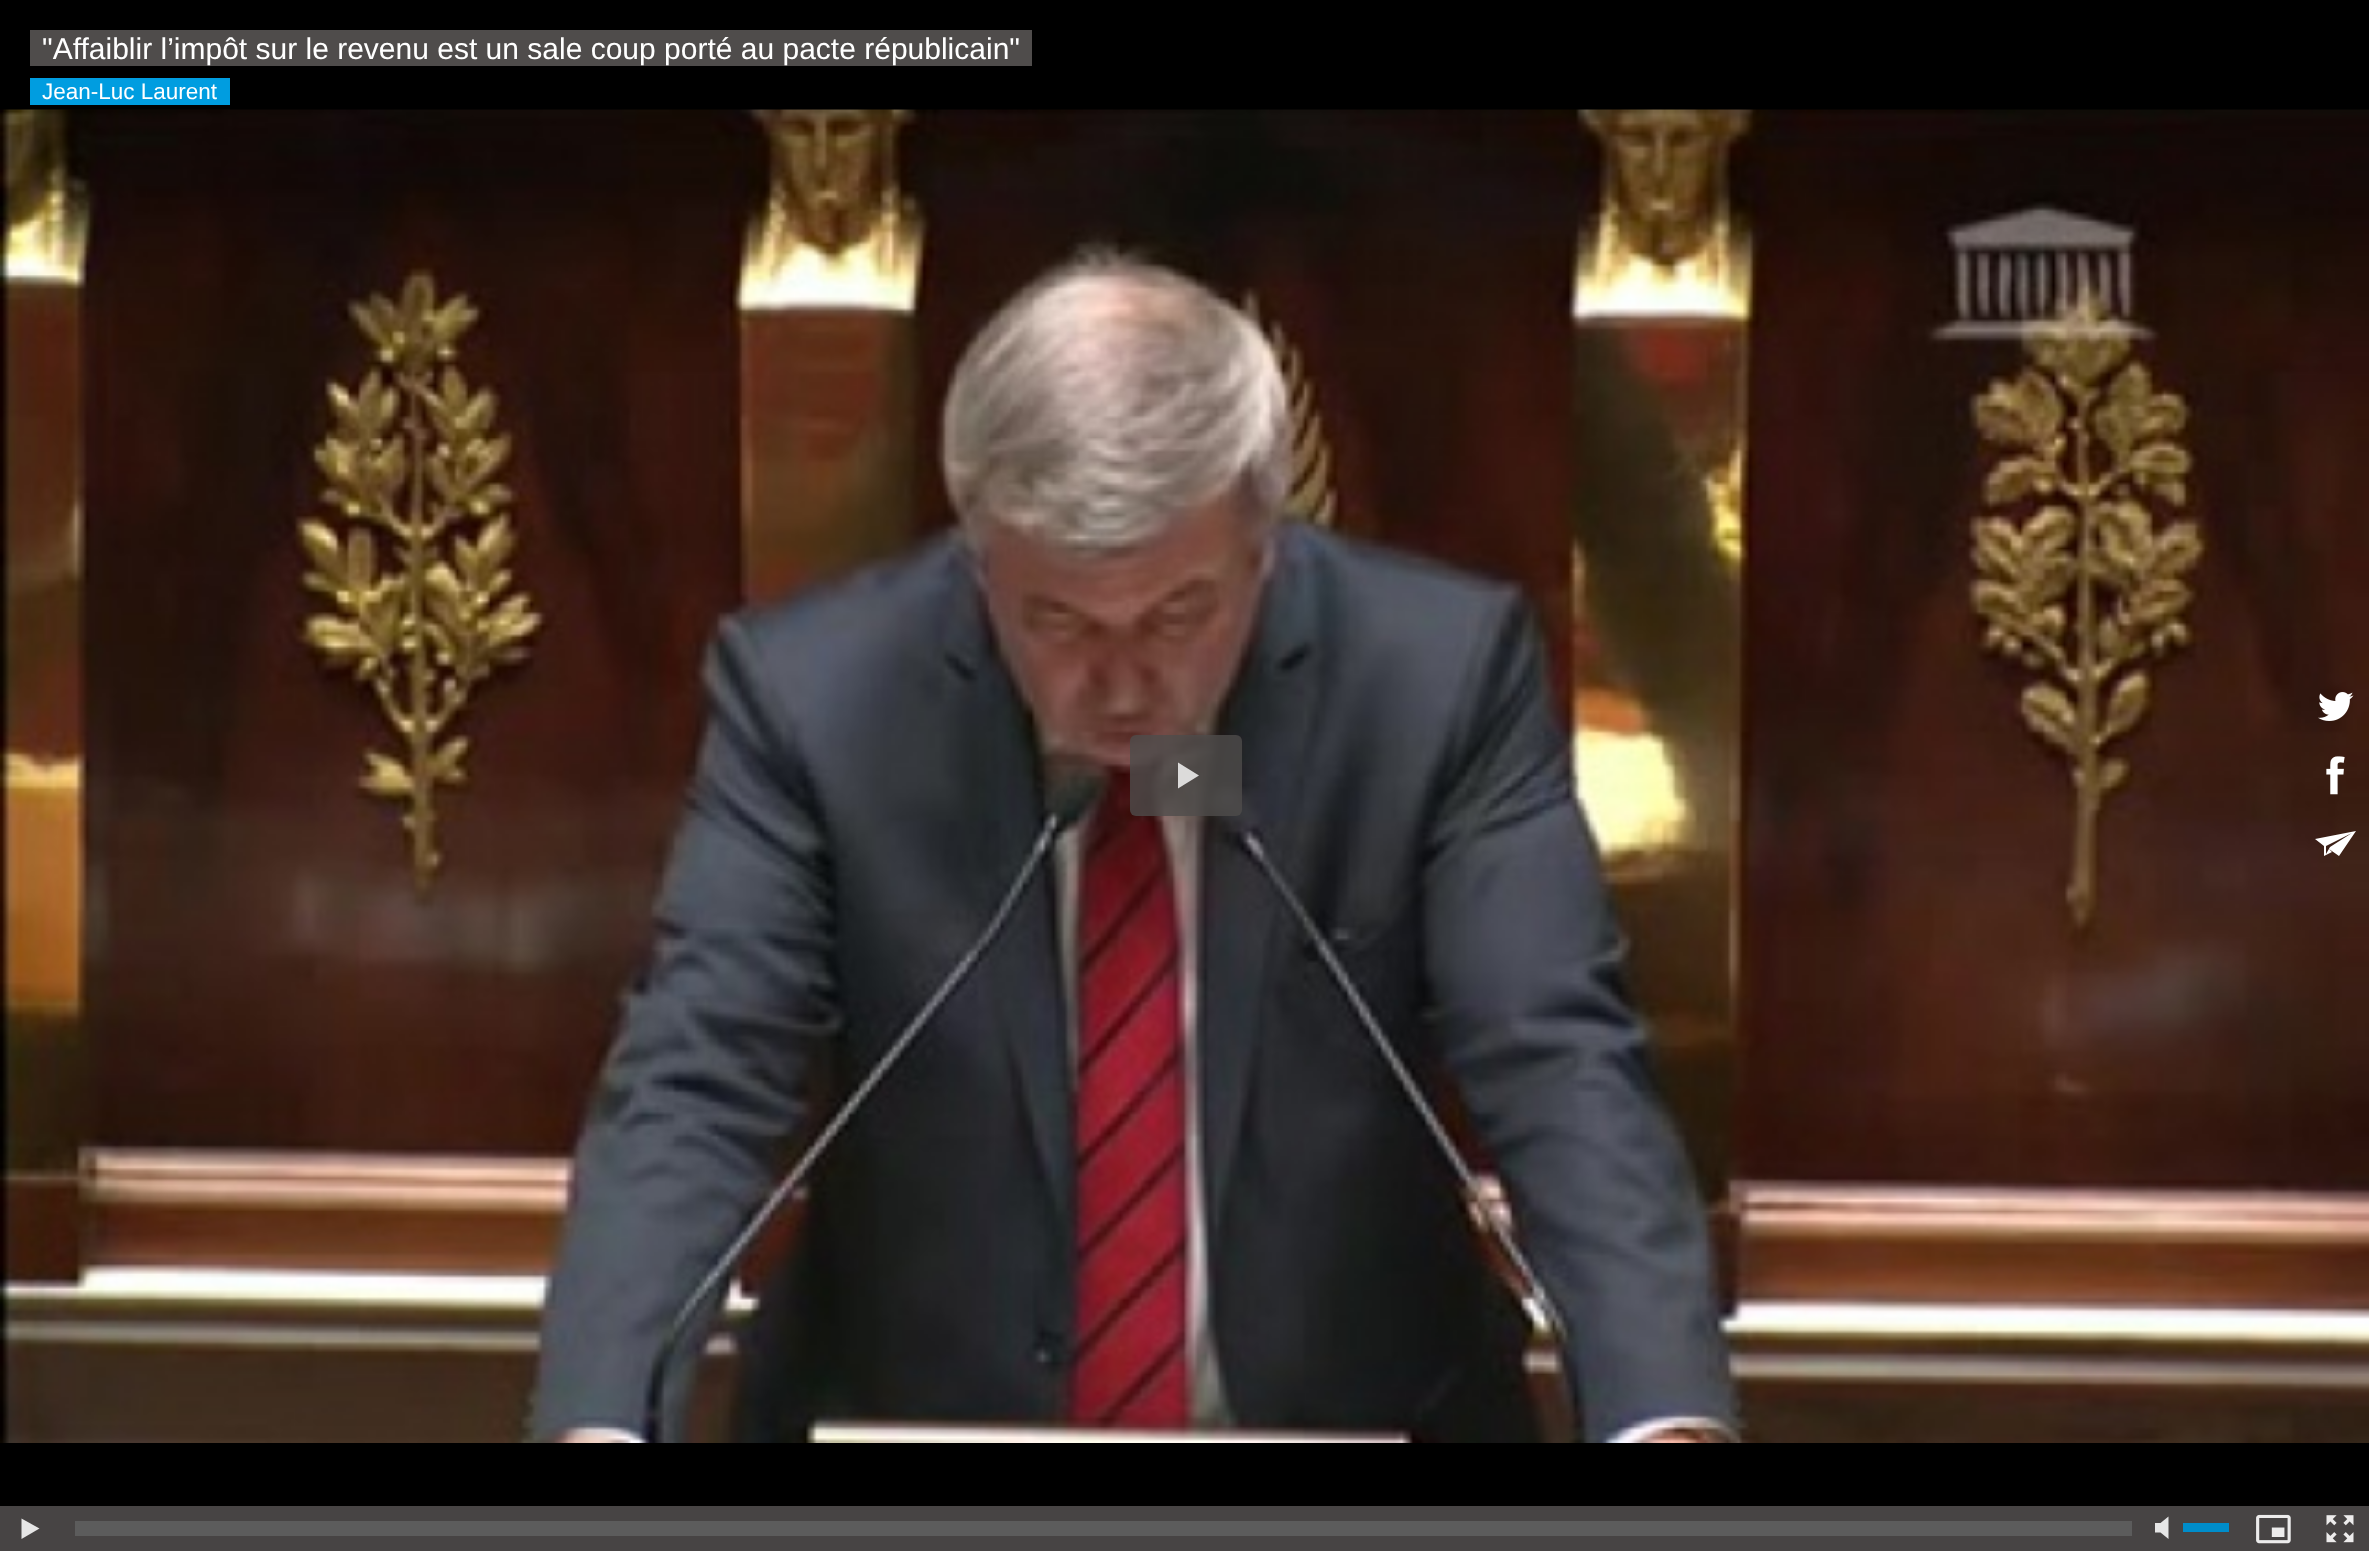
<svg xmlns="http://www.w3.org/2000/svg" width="2369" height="1551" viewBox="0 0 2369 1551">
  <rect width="100%" height="100%" fill="#000"/>
  <path d="M30 30h1002v36H30z" fill="#4f4c4b"/>
  <path d="M30 78h200v27H30z" fill="#009de0"/>
  <image x="0" y="109" width="2369" height="1334" href="img/1.png"/>
  <rect x="1130" y="735" width="112" height="81" rx="6" fill="#4f4c4bcc"/>
  <path d="M1178 762.5V788.5L1199 775.5Z" fill="#ffffffcc"/>
  <image x="2318" y="692" width="36" height="29" href="img/2.png"/>
  <image x="2326" y="756" width="19" height="39" href="img/3.png"/>
  <path d="M2315 839L2324 846V856L2332 852L2329 849L2339 856L2356 831ZM2352 833L2330 847L2326 854V846Z" fill="#fff"/>
  <path d="M0 1506h2369v45H0z" fill="#474444"/>
  <path d="M21.5 1528.5V1518.5L39.5 1528.5L21.5 1539Z" fill="#e6e6e6"/>
  <path d="M75 1521h2057v15H75z" fill="#5c5c5c"/>
  <path d="M2168.5 1516.5L2160.5 1523H2155V1532.5H2160.5L2168.5 1539Z" fill="#e6e6e6"/>
  <path d="M2183 1523h46v9H2183z" fill="#008dca"/>
  <image x="2256" y="1514" width="35" height="30" href="img/4.png"/>
  <image x="2326" y="1515" width="28" height="28" href="img/5.png"/>
  <text x="42" y="59" font-family="Liberation Sans" font-size="30" fill="#fff">"Affaiblir l’impôt sur le revenu est un sale coup porté au pacte républicain"</text>
  <text x="42" y="99" font-family="Liberation Sans" font-size="22.5" fill="#fff">Jean-Luc Laurent</text>
</svg>
